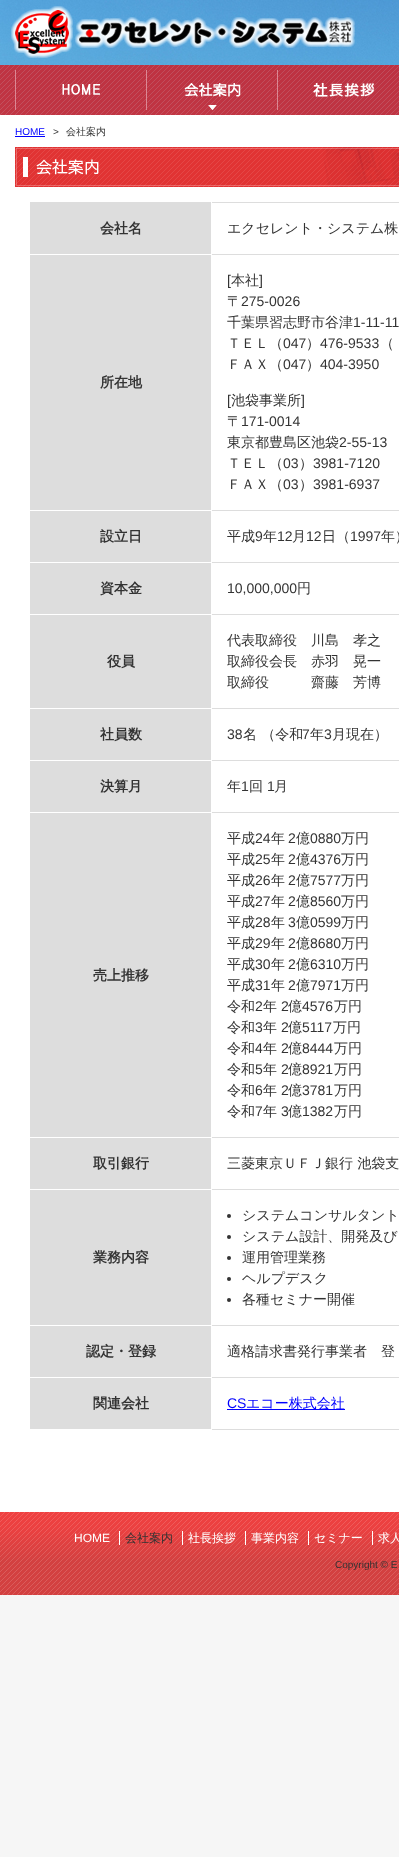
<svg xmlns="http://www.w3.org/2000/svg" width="399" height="1857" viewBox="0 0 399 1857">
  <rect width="100%" height="100%" fill="#f6f6f6"/>
  <image x="0" y="0" width="399" height="115" href="img/7.png"/>
  <image x="11" y="6" width="344" height="52" href="img/1.png"/>
  <image x="0" y="65" width="399" height="50" href="img/2.png"/>
  <path d="M146 70h1v40H146z" fill="#dc8793"/>
  <path d="M15 70h1v40H15z" fill="#dc8793"/>
  <image x="62" y="84" width="38" height="11" href="img/3.png"/>
  <image x="208" y="105" width="9" height="5" href="img/4.png"/>
  <path d="M277 70h1v40H277z" fill="#dc8793"/>
  <image x="184" y="83" width="57" height="14" href="img/5.png"/>
  <image x="313" y="83" width="62" height="14" href="img/6.png"/>
  <path d="M0 115h399v1480H0z" fill="#fff"/>
  <path d="M15 136h30v1H15z" fill="#00f"/>
  <image x="15" y="147" width="384" height="40" href="img/8.png"/>
  <path d="M30 202h369v1H30z" fill="#ddd"/>
  <path d="M212 1429h187v1H212z" fill="#ddd"/>
  <path d="M30 202h1v1228H30z" fill="#ddd"/>
  <path d="M31 203h180v51H31z" fill="#ddd"/>
  <path d="M211 254h188v1H211z" fill="#ddd"/>
  <path d="M211 202h1v53H211z" fill="#fff"/>
  <path d="M30 254h1v1H30z" fill="#fff"/>
  <path d="M31 255h180v255H31z" fill="#ddd"/>
  <path d="M211 510h188v1H211z" fill="#ddd"/>
  <path d="M211 510h1v1H211z" fill="#fff"/>
  <path d="M30 510h1v1H30z" fill="#fff"/>
  <path d="M31 511h180v51H31z" fill="#ddd"/>
  <path d="M211 562h188v1H211z" fill="#ddd"/>
  <path d="M211 562h1v1H211z" fill="#fff"/>
  <path d="M30 562h1v1H30z" fill="#fff"/>
  <path d="M31 563h180v51H31z" fill="#ddd"/>
  <path d="M211 614h188v1H211z" fill="#ddd"/>
  <path d="M211 614h1v1H211z" fill="#fff"/>
  <path d="M30 614h1v1H30z" fill="#fff"/>
  <path d="M31 615h180v93H31z" fill="#ddd"/>
  <path d="M211 708h188v1H211z" fill="#ddd"/>
  <path d="M211 708h1v1H211z" fill="#fff"/>
  <path d="M30 708h1v1H30z" fill="#fff"/>
  <path d="M31 709h180v51H31z" fill="#ddd"/>
  <path d="M211 760h188v1H211z" fill="#ddd"/>
  <path d="M211 760h1v1H211z" fill="#fff"/>
  <path d="M30 760h1v1H30z" fill="#fff"/>
  <path d="M31 761h180v51H31z" fill="#ddd"/>
  <path d="M211 812h188v1H211z" fill="#ddd"/>
  <path d="M211 812h1v1H211z" fill="#fff"/>
  <path d="M30 812h1v1H30z" fill="#fff"/>
  <path d="M31 813h180v324H31z" fill="#ddd"/>
  <path d="M211 1137h188v1H211z" fill="#ddd"/>
  <path d="M211 1137h1v1H211z" fill="#fff"/>
  <path d="M30 1137h1v1H30z" fill="#fff"/>
  <path d="M31 1138h180v51H31z" fill="#ddd"/>
  <path d="M211 1189h188v1H211z" fill="#ddd"/>
  <path d="M211 1189h1v1H211z" fill="#fff"/>
  <path d="M30 1189h1v1H30z" fill="#fff"/>
  <path d="M31 1190h180v135H31z" fill="#ddd"/>
  <path d="M211 1325h188v1H211z" fill="#ddd"/>
  <path d="M211 1325h1v1H211z" fill="#fff"/>
  <path d="M30 1325h1v1H30z" fill="#fff"/>
  <circle cx="229" cy="1216" r="2" fill="#333"/>
  <circle cx="229" cy="1237" r="2" fill="#333"/>
  <circle cx="229" cy="1258" r="2" fill="#333"/>
  <circle cx="229" cy="1279" r="2" fill="#333"/>
  <circle cx="229" cy="1300" r="2" fill="#333"/>
  <path d="M31 1326h180v51H31z" fill="#ddd"/>
  <path d="M211 1377h188v1H211z" fill="#ddd"/>
  <path d="M211 1377h1v1H211z" fill="#fff"/>
  <path d="M30 1377h1v1H30z" fill="#fff"/>
  <path d="M31 1378h180v51H31z" fill="#ddd"/>
  <path d="M30 1429h1v1H30z" fill="#fff"/>
  <path d="M227 1409h118v1H227z" fill="#00f"/>
  <image x="0" y="1512" width="399" height="83" href="img/9.png"/>
  <path d="M119 1531h1v14H119z" fill="#fff"/>
  <path d="M182 1531h1v14H182z" fill="#fff"/>
  <path d="M245 1531h1v14H245z" fill="#fff"/>
  <path d="M308 1531h1v14H308z" fill="#fff"/>
  <path d="M372 1531h1v14H372z" fill="#fff"/>
  <text x="15" y="135" font-family="Liberation Sans" font-size="10" fill="#00f">HOME</text>
  <text x="53" y="135" font-family="Liberation Sans" font-size="10" fill="#333">&gt;</text>
  <text x="66" y="135" font-family="WenQuanYi Zen Hei" font-size="10" font-weight="500" fill="#333">会社案内</text>
  <text x="100" y="233" font-family="WenQuanYi Zen Hei" font-size="14" font-weight="bold" fill="#333">会社名</text>
  <text x="227" y="233" font-family="WenQuanYi Zen Hei" font-size="14" font-weight="500" fill="#333">エクセレント・システム株</text>
  <text x="100" y="387" font-family="WenQuanYi Zen Hei" font-size="14" font-weight="bold" fill="#333">所在地</text>
  <text x="227" y="285" font-family="Liberation Sans" font-size="14" fill="#333">[</text>
  <text x="231" y="285" font-family="WenQuanYi Zen Hei" font-size="14" font-weight="500" fill="#333">本社</text>
  <text x="259" y="285" font-family="Liberation Sans" font-size="14" fill="#333">]</text>
  <text x="227" y="306" font-family="WenQuanYi Zen Hei" font-size="14" font-weight="500" fill="#333">〒</text>
  <text x="241" y="306" font-family="Liberation Sans" font-size="14" fill="#333">275-0026</text>
  <text x="227" y="327" font-family="WenQuanYi Zen Hei" font-size="14" font-weight="500" fill="#333">千葉県習志野市谷津</text>
  <text x="353" y="327" font-family="Liberation Sans" font-size="14" fill="#333">1-11-11</text>
  <text x="227" y="348" font-family="WenQuanYi Zen Hei" font-size="14" font-weight="500" fill="#333">ＴＥＬ（</text>
  <text x="283" y="348" font-family="Liberation Sans" font-size="14" fill="#333">047</text>
  <text x="306" y="348" font-family="WenQuanYi Zen Hei" font-size="14" font-weight="500" fill="#333">）</text>
  <text x="320" y="348" font-family="Liberation Sans" font-size="14" fill="#333">476-9533</text>
  <g font-family="WenQuanYi Zen Hei" font-size="14" font-weight="500" fill="#333">
    <text x="380" y="348">（</text>
    <text x="227" y="369">ＦＡＸ（</text>
  </g>
  <text x="283" y="369" font-family="Liberation Sans" font-size="14" fill="#333">047</text>
  <text x="306" y="369" font-family="WenQuanYi Zen Hei" font-size="14" font-weight="500" fill="#333">）</text>
  <g font-family="Liberation Sans" font-size="14" fill="#333">
    <text x="320" y="369">404-3950</text>
    <text x="227" y="405">[</text>
  </g>
  <text x="231" y="405" font-family="WenQuanYi Zen Hei" font-size="14" font-weight="500" fill="#333">池袋事業所</text>
  <text x="301" y="405" font-family="Liberation Sans" font-size="14" fill="#333">]</text>
  <text x="227" y="426" font-family="WenQuanYi Zen Hei" font-size="14" font-weight="500" fill="#333">〒</text>
  <text x="241" y="426" font-family="Liberation Sans" font-size="14" fill="#333">171-0014</text>
  <text x="227" y="447" font-family="WenQuanYi Zen Hei" font-size="14" font-weight="500" fill="#333">東京都豊島区池袋</text>
  <text x="339" y="447" font-family="Liberation Sans" font-size="14" fill="#333">2-55-13</text>
  <text x="227" y="468" font-family="WenQuanYi Zen Hei" font-size="14" font-weight="500" fill="#333">ＴＥＬ（</text>
  <text x="283" y="468" font-family="Liberation Sans" font-size="14" fill="#333">03</text>
  <text x="299" y="468" font-family="WenQuanYi Zen Hei" font-size="14" font-weight="500" fill="#333">）</text>
  <text x="313" y="468" font-family="Liberation Sans" font-size="14" fill="#333">3981-7120</text>
  <text x="227" y="489" font-family="WenQuanYi Zen Hei" font-size="14" font-weight="500" fill="#333">ＦＡＸ（</text>
  <text x="283" y="489" font-family="Liberation Sans" font-size="14" fill="#333">03</text>
  <text x="299" y="489" font-family="WenQuanYi Zen Hei" font-size="14" font-weight="500" fill="#333">）</text>
  <text x="313" y="489" font-family="Liberation Sans" font-size="14" fill="#333">3981-6937</text>
  <text x="100" y="541" font-family="WenQuanYi Zen Hei" font-size="14" font-weight="bold" fill="#333">設立日</text>
  <text x="227" y="541" font-family="WenQuanYi Zen Hei" font-size="14" font-weight="500" fill="#333">平成</text>
  <text x="255" y="541" font-family="Liberation Sans" font-size="14" fill="#333">9</text>
  <text x="263" y="541" font-family="WenQuanYi Zen Hei" font-size="14" font-weight="500" fill="#333">年</text>
  <text x="277" y="541" font-family="Liberation Sans" font-size="14" fill="#333">12</text>
  <text x="292" y="541" font-family="WenQuanYi Zen Hei" font-size="14" font-weight="500" fill="#333">月</text>
  <text x="306" y="541" font-family="Liberation Sans" font-size="14" fill="#333">12</text>
  <text x="322" y="541" font-family="WenQuanYi Zen Hei" font-size="14" font-weight="500" fill="#333">日（</text>
  <text x="350" y="541" font-family="Liberation Sans" font-size="14" fill="#333">1997</text>
  <text x="381" y="541" font-family="WenQuanYi Zen Hei" font-size="14" font-weight="500" fill="#333">年）</text>
  <text x="100" y="593" font-family="WenQuanYi Zen Hei" font-size="14" font-weight="bold" fill="#333">資本金</text>
  <text x="227" y="593" font-family="Liberation Sans" font-size="14" fill="#333">10,000,000</text>
  <text x="297" y="593" font-family="WenQuanYi Zen Hei" font-size="14" font-weight="500" fill="#333">円</text>
  <text x="107" y="666" font-family="WenQuanYi Zen Hei" font-size="14" font-weight="bold" fill="#333">役員</text>
  <g font-family="WenQuanYi Zen Hei" font-size="14" font-weight="500" fill="#333">
    <text x="227" y="645">代表取締役　川島　孝之</text>
    <text x="227" y="666">取締役会長　赤羽　晃一</text>
    <text x="227" y="687">取締役　　　齋藤　芳博</text>
  </g>
  <text x="100" y="739" font-family="WenQuanYi Zen Hei" font-size="14" font-weight="bold" fill="#333">社員数</text>
  <text x="227" y="739" font-family="Liberation Sans" font-size="14" fill="#333">38</text>
  <text x="243" y="739" font-family="WenQuanYi Zen Hei" font-size="14" font-weight="500" fill="#333">名 （令和</text>
  <text x="302" y="739" font-family="Liberation Sans" font-size="14" fill="#333">7</text>
  <text x="310" y="739" font-family="WenQuanYi Zen Hei" font-size="14" font-weight="500" fill="#333">年</text>
  <text x="324" y="739" font-family="Liberation Sans" font-size="14" fill="#333">3</text>
  <text x="332" y="739" font-family="WenQuanYi Zen Hei" font-size="14" font-weight="500" fill="#333">月現在）</text>
  <text x="100" y="791" font-family="WenQuanYi Zen Hei" font-size="14" font-weight="bold" fill="#333">決算月</text>
  <text x="227" y="791" font-family="WenQuanYi Zen Hei" font-size="14" font-weight="500" fill="#333">年</text>
  <text x="241" y="791" font-family="Liberation Sans" font-size="14" fill="#333">1</text>
  <text x="249" y="791" font-family="WenQuanYi Zen Hei" font-size="14" font-weight="500" fill="#333">回</text>
  <text x="267" y="791" font-family="Liberation Sans" font-size="14" fill="#333">1</text>
  <text x="274" y="791" font-family="WenQuanYi Zen Hei" font-size="14" font-weight="500" fill="#333">月</text>
  <text x="93" y="980" font-family="WenQuanYi Zen Hei" font-size="14" font-weight="bold" fill="#333">売上推移</text>
  <text x="227" y="843" font-family="WenQuanYi Zen Hei" font-size="14" font-weight="500" fill="#333">平成</text>
  <text x="255" y="843" font-family="Liberation Sans" font-size="14" fill="#333">24</text>
  <text x="271" y="843" font-family="WenQuanYi Zen Hei" font-size="14" font-weight="500" fill="#333">年</text>
  <text x="288" y="843" font-family="Liberation Sans" font-size="14" fill="#333">2</text>
  <text x="296" y="843" font-family="WenQuanYi Zen Hei" font-size="14" font-weight="500" fill="#333">億</text>
  <text x="310" y="843" font-family="Liberation Sans" font-size="14" fill="#333">0880</text>
  <g font-family="WenQuanYi Zen Hei" font-size="14" font-weight="500" fill="#333">
    <text x="341" y="843">万円</text>
    <text x="227" y="864">平成</text>
  </g>
  <text x="255" y="864" font-family="Liberation Sans" font-size="14" fill="#333">25</text>
  <text x="271" y="864" font-family="WenQuanYi Zen Hei" font-size="14" font-weight="500" fill="#333">年</text>
  <text x="288" y="864" font-family="Liberation Sans" font-size="14" fill="#333">2</text>
  <text x="296" y="864" font-family="WenQuanYi Zen Hei" font-size="14" font-weight="500" fill="#333">億</text>
  <text x="310" y="864" font-family="Liberation Sans" font-size="14" fill="#333">4376</text>
  <g font-family="WenQuanYi Zen Hei" font-size="14" font-weight="500" fill="#333">
    <text x="341" y="864">万円</text>
    <text x="227" y="885">平成</text>
  </g>
  <text x="255" y="885" font-family="Liberation Sans" font-size="14" fill="#333">26</text>
  <text x="271" y="885" font-family="WenQuanYi Zen Hei" font-size="14" font-weight="500" fill="#333">年</text>
  <text x="288" y="885" font-family="Liberation Sans" font-size="14" fill="#333">2</text>
  <text x="296" y="885" font-family="WenQuanYi Zen Hei" font-size="14" font-weight="500" fill="#333">億</text>
  <text x="310" y="885" font-family="Liberation Sans" font-size="14" fill="#333">7577</text>
  <g font-family="WenQuanYi Zen Hei" font-size="14" font-weight="500" fill="#333">
    <text x="341" y="885">万円</text>
    <text x="227" y="906">平成</text>
  </g>
  <text x="255" y="906" font-family="Liberation Sans" font-size="14" fill="#333">27</text>
  <text x="271" y="906" font-family="WenQuanYi Zen Hei" font-size="14" font-weight="500" fill="#333">年</text>
  <text x="288" y="906" font-family="Liberation Sans" font-size="14" fill="#333">2</text>
  <text x="296" y="906" font-family="WenQuanYi Zen Hei" font-size="14" font-weight="500" fill="#333">億</text>
  <text x="310" y="906" font-family="Liberation Sans" font-size="14" fill="#333">8560</text>
  <g font-family="WenQuanYi Zen Hei" font-size="14" font-weight="500" fill="#333">
    <text x="341" y="906">万円</text>
    <text x="227" y="927">平成</text>
  </g>
  <text x="255" y="927" font-family="Liberation Sans" font-size="14" fill="#333">28</text>
  <text x="271" y="927" font-family="WenQuanYi Zen Hei" font-size="14" font-weight="500" fill="#333">年</text>
  <text x="288" y="927" font-family="Liberation Sans" font-size="14" fill="#333">3</text>
  <text x="296" y="927" font-family="WenQuanYi Zen Hei" font-size="14" font-weight="500" fill="#333">億</text>
  <text x="310" y="927" font-family="Liberation Sans" font-size="14" fill="#333">0599</text>
  <g font-family="WenQuanYi Zen Hei" font-size="14" font-weight="500" fill="#333">
    <text x="341" y="927">万円</text>
    <text x="227" y="948">平成</text>
  </g>
  <text x="255" y="948" font-family="Liberation Sans" font-size="14" fill="#333">29</text>
  <text x="271" y="948" font-family="WenQuanYi Zen Hei" font-size="14" font-weight="500" fill="#333">年</text>
  <text x="288" y="948" font-family="Liberation Sans" font-size="14" fill="#333">2</text>
  <text x="296" y="948" font-family="WenQuanYi Zen Hei" font-size="14" font-weight="500" fill="#333">億</text>
  <text x="310" y="948" font-family="Liberation Sans" font-size="14" fill="#333">8680</text>
  <g font-family="WenQuanYi Zen Hei" font-size="14" font-weight="500" fill="#333">
    <text x="341" y="948">万円</text>
    <text x="227" y="969">平成</text>
  </g>
  <text x="255" y="969" font-family="Liberation Sans" font-size="14" fill="#333">30</text>
  <text x="271" y="969" font-family="WenQuanYi Zen Hei" font-size="14" font-weight="500" fill="#333">年</text>
  <text x="288" y="969" font-family="Liberation Sans" font-size="14" fill="#333">2</text>
  <text x="296" y="969" font-family="WenQuanYi Zen Hei" font-size="14" font-weight="500" fill="#333">億</text>
  <text x="310" y="969" font-family="Liberation Sans" font-size="14" fill="#333">6310</text>
  <g font-family="WenQuanYi Zen Hei" font-size="14" font-weight="500" fill="#333">
    <text x="341" y="969">万円</text>
    <text x="227" y="990">平成</text>
  </g>
  <text x="255" y="990" font-family="Liberation Sans" font-size="14" fill="#333">31</text>
  <text x="271" y="990" font-family="WenQuanYi Zen Hei" font-size="14" font-weight="500" fill="#333">年</text>
  <text x="288" y="990" font-family="Liberation Sans" font-size="14" fill="#333">2</text>
  <text x="296" y="990" font-family="WenQuanYi Zen Hei" font-size="14" font-weight="500" fill="#333">億</text>
  <text x="310" y="990" font-family="Liberation Sans" font-size="14" fill="#333">7971</text>
  <g font-family="WenQuanYi Zen Hei" font-size="14" font-weight="500" fill="#333">
    <text x="341" y="990">万円</text>
    <text x="227" y="1011">令和</text>
  </g>
  <text x="255" y="1011" font-family="Liberation Sans" font-size="14" fill="#333">2</text>
  <text x="263" y="1011" font-family="WenQuanYi Zen Hei" font-size="14" font-weight="500" fill="#333">年</text>
  <text x="281" y="1011" font-family="Liberation Sans" font-size="14" fill="#333">2</text>
  <text x="288" y="1011" font-family="WenQuanYi Zen Hei" font-size="14" font-weight="500" fill="#333">億</text>
  <text x="302" y="1011" font-family="Liberation Sans" font-size="14" fill="#333">4576</text>
  <g font-family="WenQuanYi Zen Hei" font-size="14" font-weight="500" fill="#333">
    <text x="334" y="1011">万円</text>
    <text x="227" y="1032">令和</text>
  </g>
  <text x="255" y="1032" font-family="Liberation Sans" font-size="14" fill="#333">3</text>
  <text x="263" y="1032" font-family="WenQuanYi Zen Hei" font-size="14" font-weight="500" fill="#333">年</text>
  <text x="281" y="1032" font-family="Liberation Sans" font-size="14" fill="#333">2</text>
  <text x="288" y="1032" font-family="WenQuanYi Zen Hei" font-size="14" font-weight="500" fill="#333">億</text>
  <text x="302" y="1032" font-family="Liberation Sans" font-size="14" fill="#333">5117</text>
  <g font-family="WenQuanYi Zen Hei" font-size="14" font-weight="500" fill="#333">
    <text x="333" y="1032">万円</text>
    <text x="227" y="1053">令和</text>
  </g>
  <text x="255" y="1053" font-family="Liberation Sans" font-size="14" fill="#333">4</text>
  <text x="263" y="1053" font-family="WenQuanYi Zen Hei" font-size="14" font-weight="500" fill="#333">年</text>
  <text x="281" y="1053" font-family="Liberation Sans" font-size="14" fill="#333">2</text>
  <text x="288" y="1053" font-family="WenQuanYi Zen Hei" font-size="14" font-weight="500" fill="#333">億</text>
  <text x="302" y="1053" font-family="Liberation Sans" font-size="14" fill="#333">8444</text>
  <g font-family="WenQuanYi Zen Hei" font-size="14" font-weight="500" fill="#333">
    <text x="334" y="1053">万円</text>
    <text x="227" y="1074">令和</text>
  </g>
  <text x="255" y="1074" font-family="Liberation Sans" font-size="14" fill="#333">5</text>
  <text x="263" y="1074" font-family="WenQuanYi Zen Hei" font-size="14" font-weight="500" fill="#333">年</text>
  <text x="281" y="1074" font-family="Liberation Sans" font-size="14" fill="#333">2</text>
  <text x="288" y="1074" font-family="WenQuanYi Zen Hei" font-size="14" font-weight="500" fill="#333">億</text>
  <text x="302" y="1074" font-family="Liberation Sans" font-size="14" fill="#333">8921</text>
  <g font-family="WenQuanYi Zen Hei" font-size="14" font-weight="500" fill="#333">
    <text x="334" y="1074">万円</text>
    <text x="227" y="1095">令和</text>
  </g>
  <text x="255" y="1095" font-family="Liberation Sans" font-size="14" fill="#333">6</text>
  <text x="263" y="1095" font-family="WenQuanYi Zen Hei" font-size="14" font-weight="500" fill="#333">年</text>
  <text x="281" y="1095" font-family="Liberation Sans" font-size="14" fill="#333">2</text>
  <text x="288" y="1095" font-family="WenQuanYi Zen Hei" font-size="14" font-weight="500" fill="#333">億</text>
  <text x="302" y="1095" font-family="Liberation Sans" font-size="14" fill="#333">3781</text>
  <g font-family="WenQuanYi Zen Hei" font-size="14" font-weight="500" fill="#333">
    <text x="334" y="1095">万円</text>
    <text x="227" y="1116">令和</text>
  </g>
  <text x="255" y="1116" font-family="Liberation Sans" font-size="14" fill="#333">7</text>
  <text x="263" y="1116" font-family="WenQuanYi Zen Hei" font-size="14" font-weight="500" fill="#333">年</text>
  <text x="281" y="1116" font-family="Liberation Sans" font-size="14" fill="#333">3</text>
  <text x="288" y="1116" font-family="WenQuanYi Zen Hei" font-size="14" font-weight="500" fill="#333">億</text>
  <text x="302" y="1116" font-family="Liberation Sans" font-size="14" fill="#333">1382</text>
  <text x="334" y="1116" font-family="WenQuanYi Zen Hei" font-size="14" font-weight="500" fill="#333">万円</text>
  <text x="93" y="1168" font-family="WenQuanYi Zen Hei" font-size="14" font-weight="bold" fill="#333">取引銀行</text>
  <text x="227" y="1168" font-family="WenQuanYi Zen Hei" font-size="14" font-weight="500" fill="#333">三菱東京ＵＦＪ銀行 池袋支</text>
  <text x="93" y="1262" font-family="WenQuanYi Zen Hei" font-size="14" font-weight="bold" fill="#333">業務内容</text>
  <g font-family="WenQuanYi Zen Hei" font-size="14" font-weight="500" fill="#333">
    <text x="242" y="1220">システムコンサルタント</text>
    <text x="242" y="1241">システム設計、開発及び</text>
    <text x="242" y="1262">運用管理業務</text>
    <text x="242" y="1283">ヘルプデスク</text>
    <text x="242" y="1304">各種セミナー開催</text>
  </g>
  <text x="86" y="1356" font-family="WenQuanYi Zen Hei" font-size="14" font-weight="bold" fill="#333">認定・登録</text>
  <text x="227" y="1356" font-family="WenQuanYi Zen Hei" font-size="14" font-weight="500" fill="#333">適格請求書発行事業者　登</text>
  <text x="93" y="1408" font-family="WenQuanYi Zen Hei" font-size="14" font-weight="bold" fill="#333">関連会社</text>
  <text x="227" y="1408" font-family="Liberation Sans" font-size="14" fill="#00f">CS</text>
  <text x="246" y="1408" font-family="WenQuanYi Zen Hei" font-size="14" font-weight="500" fill="#00f">エコー株式会社</text>
  <text x="74" y="1542" font-family="Liberation Sans" font-size="12" fill="#fff">HOME</text>
  <text x="125" y="1542" font-family="WenQuanYi Zen Hei" font-size="12" font-weight="500" fill="#333">会社案内</text>
  <g font-family="WenQuanYi Zen Hei" font-size="12" font-weight="500" fill="#fff">
    <text x="188" y="1542">社長挨拶</text>
    <text x="251" y="1542">事業内容</text>
    <text x="314" y="1542">セミナー</text>
    <text x="378" y="1542">求人</text>
  </g>
  <text x="335" y="1568" font-family="Liberation Sans" font-size="10" fill="#333">Copyright © E</text>
</svg>
